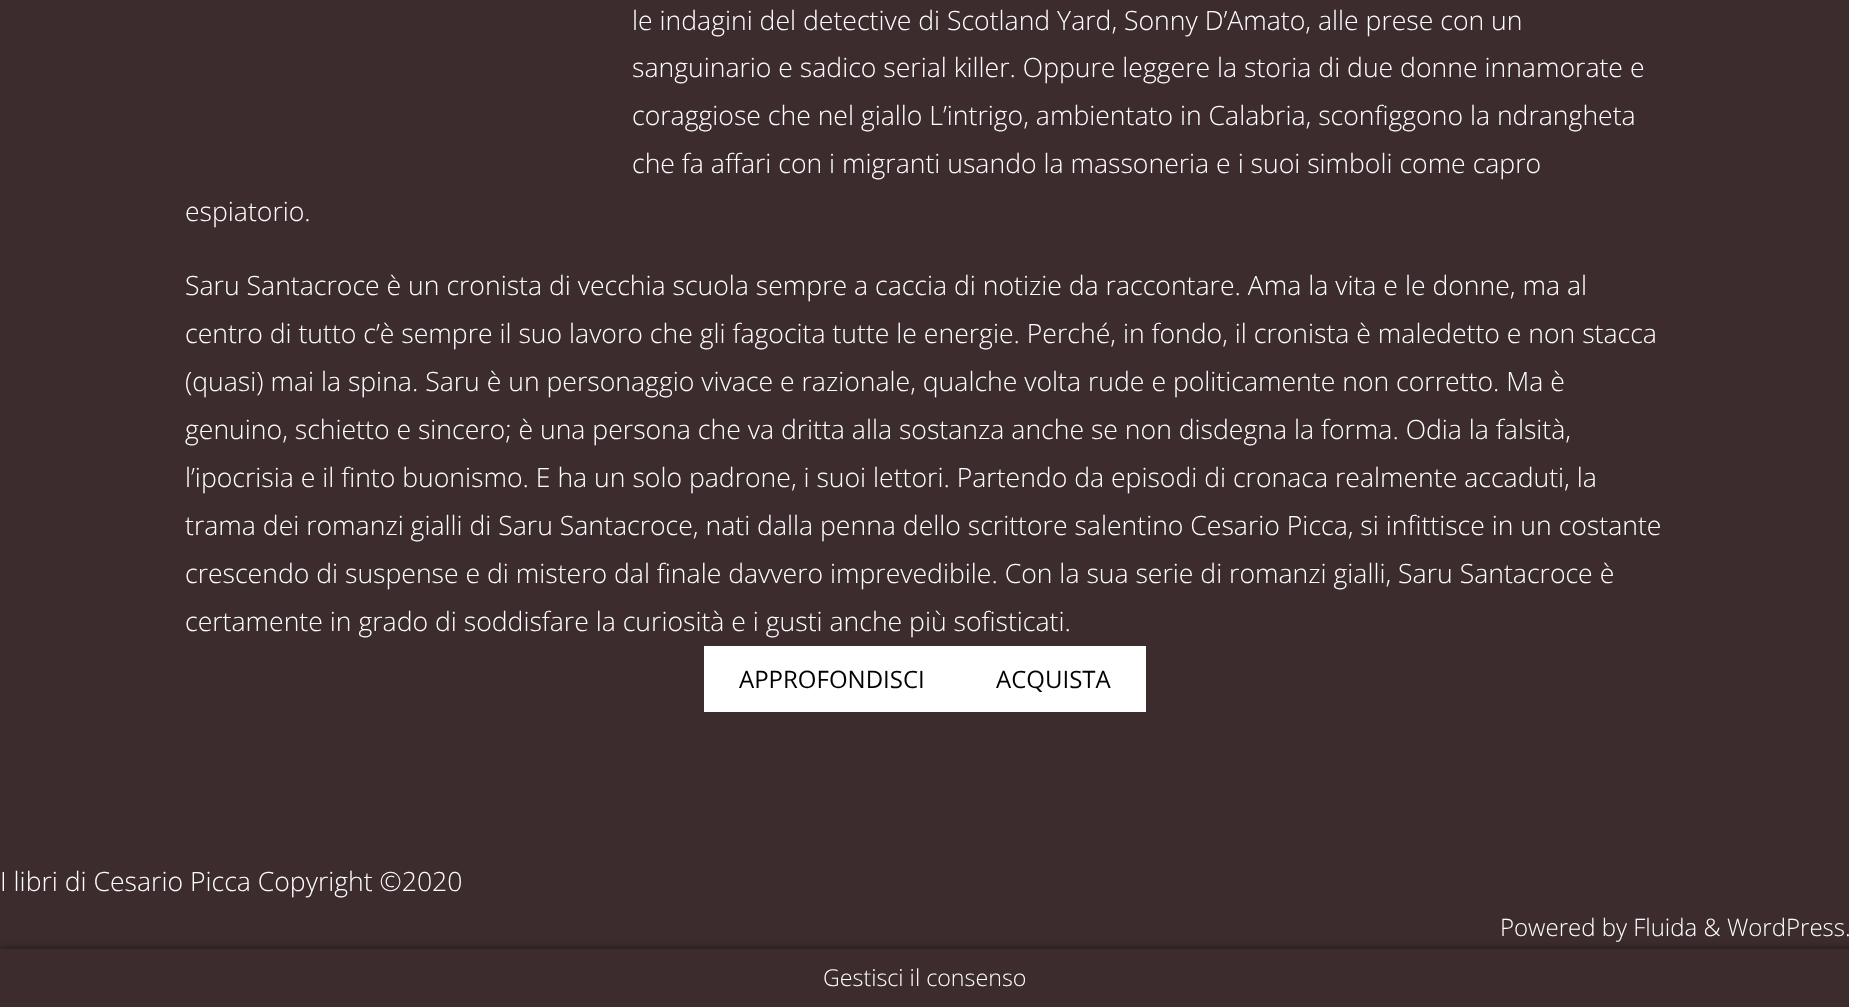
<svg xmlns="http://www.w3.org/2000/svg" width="1849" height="1007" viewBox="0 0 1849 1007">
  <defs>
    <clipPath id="clip1"><path d="M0 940h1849v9H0z"/></clipPath>
  </defs>
  <rect width="100%" height="100%" fill="#3d2c2e"/>
  <path d="M704 646h442v66H704z" fill="#fff"/>
  <g clip-path="url(#clip1)">
    <path d="M0 949h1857v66H0z" fill="#161616" filter="blur(4.5px)"/>
  </g>
  <g font-family="Open Sans" font-size="26.6" font-weight="300" fill="#fff">
    <text x="632" y="30">le indagini del detective di Scotland Yard, Sonny D’Amato, alle prese con un</text>
    <text x="632" y="77">sanguinario e sadico serial killer. Oppure leggere la storia di due donne innamorate e</text>
    <text x="632" y="125">coraggiose che nel giallo L’intrigo, ambientato in Calabria, sconfiggono la ndrangheta</text>
    <text x="632" y="173">che fa affari con i migranti usando la massoneria e i suoi simboli come capro</text>
    <text x="185" y="221">espiatorio.</text>
    <text x="185" y="295">Saru Santacroce è un cronista di vecchia scuola sempre a caccia di notizie da raccontare. Ama la vita e le donne, ma al</text>
    <text x="185" y="343">centro di tutto c’è sempre il suo lavoro che gli fagocita tutte le energie. Perché, in fondo, il cronista è maledetto e non stacca</text>
    <text x="185" y="391">(quasi) mai la spina. Saru è un personaggio vivace e razionale, qualche volta rude e politicamente non corretto. Ma è</text>
    <text x="185" y="439">genuino, schietto e sincero; è una persona che va dritta alla sostanza anche se non disdegna la forma. Odia la falsità,</text>
    <text x="185" y="487">l’ipocrisia e il finto buonismo. E ha un solo padrone, i suoi lettori. Partendo da episodi di cronaca realmente accaduti, la</text>
    <text x="185" y="535">trama dei romanzi gialli di Saru Santacroce, nati dalla penna dello scrittore salentino Cesario Picca, si infittisce in un costante</text>
    <text x="185" y="583">crescendo di suspense e di mistero dal finale davvero imprevedibile. Con la sua serie di romanzi gialli, Saru Santacroce è</text>
    <text x="185" y="631">certamente in grado di soddisfare la curiosità e i gusti anche più sofisticati.</text>
  </g>
  <g font-family="Open Sans" font-size="24" fill="#000">
    <text x="739" y="688">APPROFONDISCI</text>
    <text x="996" y="688">ACQUISTA</text>
  </g>
  <text x="0" y="891" font-family="Open Sans" font-size="26.6" font-weight="300" fill="#fff">I libri di Cesario Picca Copyright ©2020</text>
  <text x="1500" y="936" font-family="Open Sans" font-size="24" font-weight="300" fill="#fff">Powered by Fluida &amp; WordPress.</text>
  <text x="823" y="986" font-family="Open Sans" font-size="23.25" font-weight="300" fill="#fff">Gestisci il consenso</text>
</svg>
